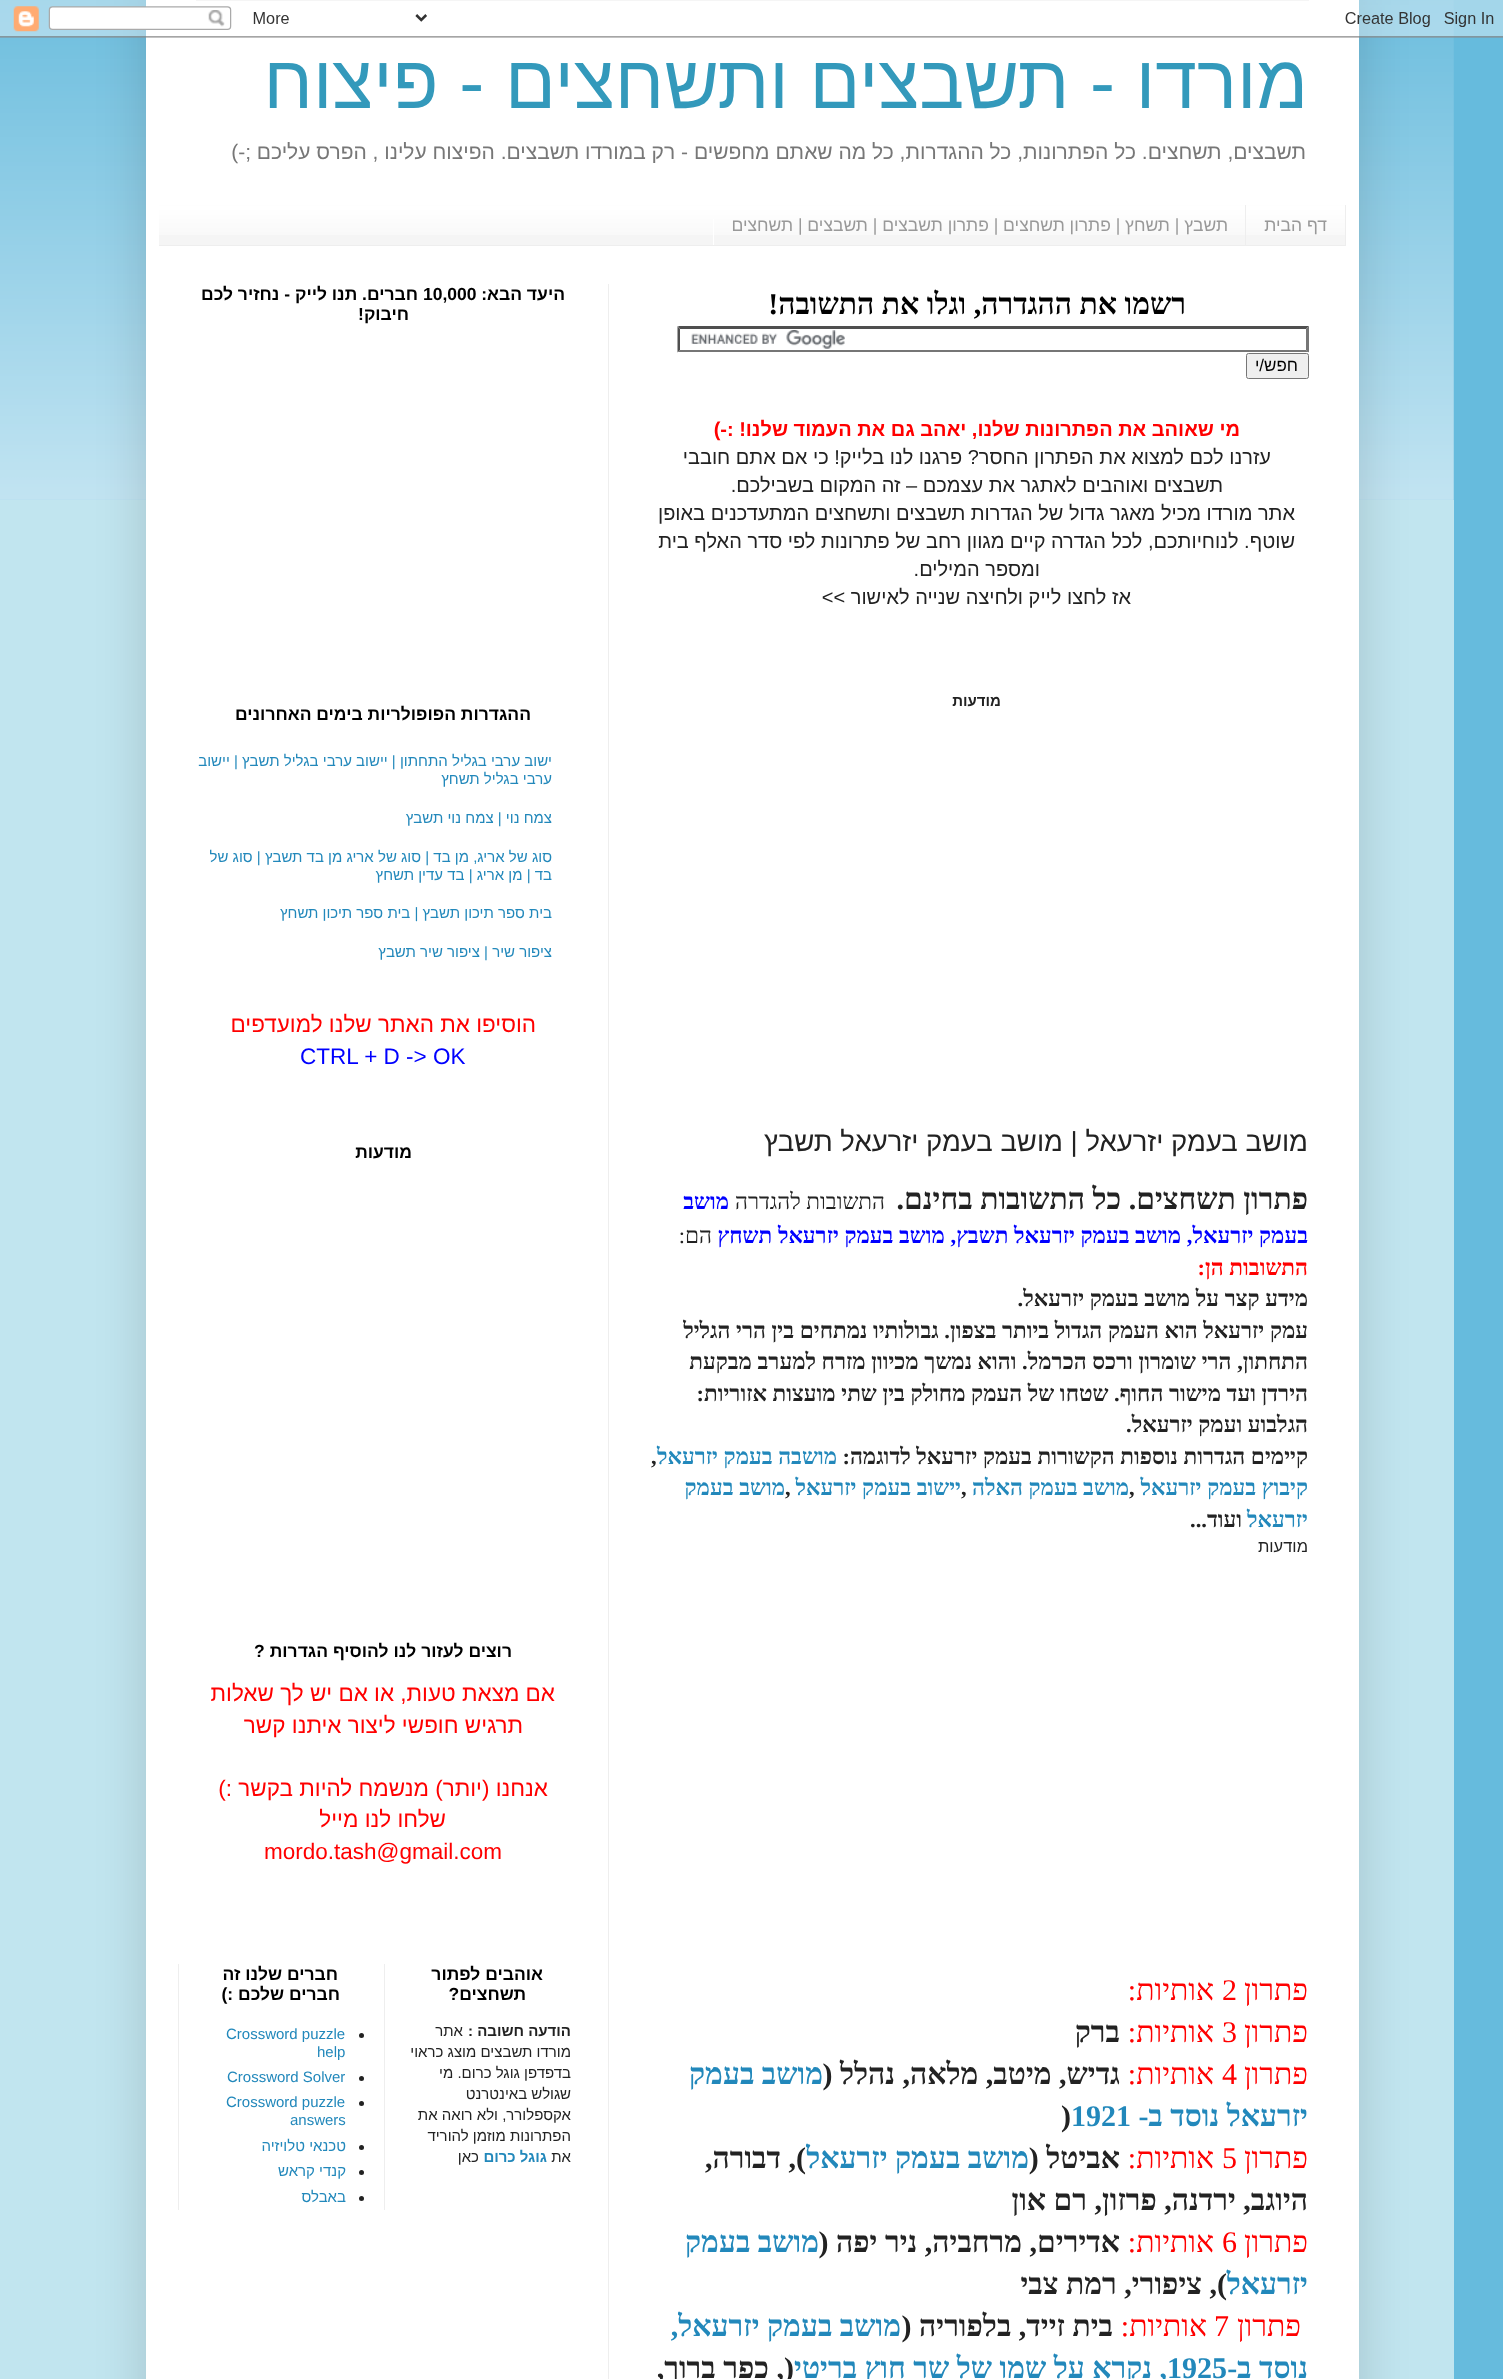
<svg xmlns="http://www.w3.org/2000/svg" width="1503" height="2379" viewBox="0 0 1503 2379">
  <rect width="100%" height="100%" fill="#6bd"/>
  <image x="0" y="0" width="1454" height="500" href="img/1.png"/>
  <path d="M0 500h1454v1879H0z" fill="#c1e5ef"/>
  <path d="M146 -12h1213v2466H146z" fill="#00000026" filter="blur(25px)"/>
  <path d="M146 0h1213v2379H146z" fill="#fff"/>
  <path d="M196 0h1113v1H196z" fill="#eee"/>
  <image x="0" y="0" width="1503" height="38" href="img/2.png"/>
  <path d="M159 205h1186v40H159z" fill="#f5f5f5"/>
  <image x="159" y="205" width="1186" height="30" href="img/3.png"/>
  <path d="M159 245h1187v1H159z" fill="#eee"/>
  <path d="M1345 205h1v40H1345z" fill="#eee"/>
  <path d="M1245 205h1v40H1245z" fill="#eee"/>
  <path d="M713 219h1v26H713z" fill="#fff"/>
  <path d="M608 284h1v2095H608z" fill="#eee"/>
  <image x="691" y="330" width="154" height="19" href="img/4.png"/>
  <path d="M678 326H1309L1306 329H680Z" fill="#4f4f4f"/>
  <path d="M1309 326V352.5L1306 350V329Z" fill="#767676"/>
  <path d="M1309 352H678L680 350H1306Z" fill="#767676"/>
  <path d="M677.5 352.5V326L680 329V350Z" fill="#4f4f4f"/>
  <rect x="1246.5" y="353.5" width="62" height="25" rx="2" fill="#efefef" stroke="#767676"/>
  <path d="M384 1964h1v246H384z" fill="#eee"/>
  <path d="M178 1964h1v246H178z" fill="#eee"/>
  <circle cx="361.5" cy="2035.5" r="2.5" fill="#222"/>
  <circle cx="361.5" cy="2078.5" r="2.5" fill="#222"/>
  <circle cx="361.5" cy="2103.5" r="2.5" fill="#222"/>
  <circle cx="361.5" cy="2147.5" r="2.5" fill="#222"/>
  <circle cx="361.5" cy="2172.5" r="2.5" fill="#222"/>
  <circle cx="361.5" cy="2198.5" r="2.5" fill="#222"/>
  <text x="1308" y="108" font-family="Liberation Sans" font-size="75" direction="rtl" fill="#39b">מורדו - תשבצים ותשחצים - פיצוח</text>
  <text x="1306" y="159" font-family="Liberation Sans" font-size="21" direction="rtl" fill="#777">תשבצים, תשחצים. כל הפתרונות, כל ההגדרות, כל מה שאתם מחפשים - רק במורדו תשבצים. הפיצוח עלינו , הפרס עליכם ;-)</text>
  <g font-family="Liberation Sans" font-size="17.5" direction="rtl" fill="#999">
    <text x="1327" y="231">דף הבית</text>
    <text x="1228" y="231">תשבץ | תשחץ | פתרון תשחצים | פתרון תשבצים | תשבצים | תשחצים</text>
  </g>
  <text x="1186" y="314" font-family="Liberation Serif" font-size="30" font-weight="bold" direction="rtl" fill="#000">רשמו את ההגדרה, וגלו את התשובה!</text>
  <text x="1298" y="371" font-family="Liberation Sans" font-size="17" direction="rtl" fill="#000">חפש/י</text>
  <text x="1240" y="436" font-family="Liberation Sans" font-size="20" font-weight="bold" direction="rtl" fill="#f00">מי שאוהב את הפתרונות שלנו, יאהב גם את העמוד שלנו! :-)</text>
  <g font-family="Liberation Sans" font-size="20" direction="rtl" fill="#222">
    <text x="1271" y="464">עזרנו לכם למצוא את הפתרון החסר? פרגנו לנו בלייק! כי אם אתם חובבי</text>
    <text x="1223" y="492">תשבצים ואוהבים לאתגר את עצמכם – זה המקום בשבילכם.</text>
    <text x="1295" y="520">אתר מורדו מכיל מאגר גדול של הגדרות תשבצים ותשחצים המתעדכנים באופן</text>
    <text x="1295" y="548">שוטף. לנוחיותכם, לכל הגדרה קיים מגוון רחב של פתרונות לפי סדר האלף בית</text>
    <text x="1040" y="576">ומספר המילים.</text>
    <text x="1131" y="604">אז לחצו לייק ולחיצה שנייה לאישור &gt;&gt;</text>
  </g>
  <text x="1001" y="706" font-family="Liberation Sans" font-size="15" font-weight="bold" direction="rtl" fill="#222">מודעות</text>
  <text x="1308" y="1151" font-family="Liberation Sans" font-size="27.5" direction="rtl" fill="#222">מושב בעמק יזרעאל | מושב בעמק יזרעאל תשבץ</text>
  <text x="1308" y="1209" font-family="Liberation Serif" font-size="30" font-weight="bold" direction="rtl" fill="#222">פתרון תשחצים. כל התשובות בחינם.</text>
  <text x="885" y="1209" font-family="Liberation Serif" font-size="22.5" direction="rtl" fill="#222">התשובות להגדרה</text>
  <g font-family="Liberation Serif" font-size="22.5" font-weight="bold" direction="rtl" fill="#00f">
    <text x="729" y="1209">מושב</text>
    <text x="1308" y="1243">בעמק יזרעאל,</text>
    <text x="1181" y="1243">מושב בעמק יזרעאל תשבץ, מושב בעמק יזרעאל תשחץ</text>
  </g>
  <text x="712" y="1243" font-family="Liberation Serif" font-size="22.5" direction="rtl" fill="#222">הם:</text>
  <text x="1308" y="1275" font-family="Liberation Serif" font-size="22.5" font-weight="bold" direction="rtl" fill="#f00">התשובות הן:</text>
  <g font-family="Liberation Serif" font-size="22.5" font-weight="bold" direction="rtl" fill="#222">
    <text x="1308" y="1306">מידע קצר על מושב בעמק יזרעאל.</text>
    <text x="1308" y="1338">עמק יזרעאל הוא העמק הגדול ביותר בצפון. גבולותיו נמתחים בין הרי הגליל</text>
    <text x="1308" y="1369">התחתון, הרי שומרון ורכס הכרמל. והוא נמשך מכיוון מזרח למערב מבקעת</text>
    <text x="1308" y="1401">הירדן ועד מישור החוף. שטחו של העמק מחולק בין שתי מועצות אזוריות:</text>
    <text x="1308" y="1432">הגלבוע ועמק יזרעאל.</text>
    <text x="1308" y="1464">קיימים הגדרות נוספות הקשורות בעמק יזרעאל לדוגמה:</text>
  </g>
  <text x="837" y="1464" font-family="Liberation Serif" font-size="22.5" font-weight="bold" direction="rtl" fill="#28b">מושבה בעמק יזרעאל</text>
  <text x="651" y="1464" font-family="Liberation Serif" font-size="22.5" font-weight="bold" fill="#222">,</text>
  <text x="1308" y="1495" font-family="Liberation Serif" font-size="22.5" font-weight="bold" direction="rtl" fill="#28b">קיבוץ בעמק יזרעאל</text>
  <text x="1129" y="1495" font-family="Liberation Serif" font-size="22.5" font-weight="bold" fill="#222">,</text>
  <text x="1129" y="1495" font-family="Liberation Serif" font-size="22.5" font-weight="bold" direction="rtl" fill="#28b">מושב בעמק האלה</text>
  <text x="961" y="1495" font-family="Liberation Serif" font-size="22.5" font-weight="bold" fill="#222">,</text>
  <text x="961" y="1495" font-family="Liberation Serif" font-size="22.5" font-weight="bold" direction="rtl" fill="#28b">יישוב בעמק יזרעאל</text>
  <text x="785" y="1495" font-family="Liberation Serif" font-size="22.5" font-weight="bold" fill="#222">,</text>
  <g font-family="Liberation Serif" font-size="22.5" font-weight="bold" direction="rtl" fill="#28b">
    <text x="785" y="1495">מושב בעמק</text>
    <text x="1308" y="1527">יזרעאל</text>
  </g>
  <text x="1242" y="1527" font-family="Liberation Serif" font-size="22.5" font-weight="bold" direction="rtl" fill="#222">ועוד...</text>
  <text x="1308" y="1552" font-family="Liberation Sans" font-size="16.5" direction="rtl" fill="#222">מודעות</text>
  <text x="1308" y="2000" font-family="Liberation Serif" font-size="30" direction="rtl" fill="#f00">פתרון</text>
  <text x="1222" y="2000" font-family="Liberation Serif" font-size="30" fill="#f00">2</text>
  <g font-family="Liberation Serif" font-size="30" direction="rtl" fill="#f00">
    <text x="1214" y="2000">אותיות:</text>
    <text x="1308" y="2042">פתרון</text>
  </g>
  <text x="1222" y="2042" font-family="Liberation Serif" font-size="30" fill="#f00">3</text>
  <text x="1214" y="2042" font-family="Liberation Serif" font-size="30" direction="rtl" fill="#f00">אותיות:</text>
  <text x="1120" y="2042" font-family="Liberation Serif" font-size="30" font-weight="bold" direction="rtl" fill="#222">ברק</text>
  <text x="1308" y="2084" font-family="Liberation Serif" font-size="30" direction="rtl" fill="#f00">פתרון</text>
  <text x="1222" y="2084" font-family="Liberation Serif" font-size="30" fill="#f00">4</text>
  <text x="1214" y="2084" font-family="Liberation Serif" font-size="30" direction="rtl" fill="#f00">אותיות:</text>
  <text x="1120" y="2084" font-family="Liberation Serif" font-size="30" font-weight="bold" direction="rtl" fill="#222">גדיש, מיטב, מלאה, נהלל (</text>
  <g font-family="Liberation Serif" font-size="30" font-weight="bold" direction="rtl" fill="#28b">
    <text x="823" y="2084">מושב בעמק</text>
    <text x="1308" y="2126">יזרעאל נוסד ב-</text>
  </g>
  <text x="1071" y="2126" font-family="Liberation Serif" font-size="30" font-weight="bold" fill="#28b">1921</text>
  <text x="1061" y="2126" font-family="Liberation Serif" font-size="30" font-weight="bold" fill="#222">)</text>
  <text x="1308" y="2168" font-family="Liberation Serif" font-size="30" direction="rtl" fill="#f00">פתרון</text>
  <text x="1222" y="2168" font-family="Liberation Serif" font-size="30" fill="#f00">5</text>
  <text x="1214" y="2168" font-family="Liberation Serif" font-size="30" direction="rtl" fill="#f00">אותיות:</text>
  <text x="1120" y="2168" font-family="Liberation Serif" font-size="30" font-weight="bold" direction="rtl" fill="#222">אביטל (</text>
  <text x="1029" y="2168" font-family="Liberation Serif" font-size="30" font-weight="bold" direction="rtl" fill="#28b">מושב בעמק יזרעאל</text>
  <g font-family="Liberation Serif" font-size="30" font-weight="bold" direction="rtl" fill="#222">
    <text x="806" y="2168">), דבורה,</text>
    <text x="1308" y="2210">היוגב, ירדנה, פרזון, רם און</text>
  </g>
  <text x="1308" y="2252" font-family="Liberation Serif" font-size="30" direction="rtl" fill="#f00">פתרון</text>
  <text x="1222" y="2252" font-family="Liberation Serif" font-size="30" fill="#f00">6</text>
  <text x="1214" y="2252" font-family="Liberation Serif" font-size="30" direction="rtl" fill="#f00">אותיות:</text>
  <text x="1120" y="2252" font-family="Liberation Serif" font-size="30" font-weight="bold" direction="rtl" fill="#222">אדירים, מרחביה, ניר יפה (</text>
  <g font-family="Liberation Serif" font-size="30" font-weight="bold" direction="rtl" fill="#28b">
    <text x="819" y="2252">מושב בעמק</text>
    <text x="1308" y="2294">יזרעאל</text>
  </g>
  <text x="1227" y="2294" font-family="Liberation Serif" font-size="30" font-weight="bold" direction="rtl" fill="#222">), ציפורי, רמת צבי</text>
  <text x="1301" y="2336" font-family="Liberation Serif" font-size="30" direction="rtl" fill="#f00">פתרון</text>
  <text x="1214" y="2336" font-family="Liberation Serif" font-size="30" fill="#f00">7</text>
  <text x="1207" y="2336" font-family="Liberation Serif" font-size="30" direction="rtl" fill="#f00">אותיות:</text>
  <text x="1113" y="2336" font-family="Liberation Serif" font-size="30" font-weight="bold" direction="rtl" fill="#222">בית זייד, בלפוריה (</text>
  <g font-family="Liberation Serif" font-size="30" font-weight="bold" direction="rtl" fill="#28b">
    <text x="901" y="2336">מושב בעמק יזרעאל,</text>
    <text x="1308" y="2378">נוסד ב-</text>
  </g>
  <text x="1167" y="2378" font-family="Liberation Serif" font-size="30" font-weight="bold" fill="#28b">1925</text>
  <text x="1167" y="2378" font-family="Liberation Serif" font-size="30" font-weight="bold" direction="rtl" fill="#28b">, נקרא על שמו של שר חוץ בריטי</text>
  <text x="784" y="2378" font-family="Liberation Serif" font-size="30" font-weight="bold" fill="#222">)</text>
  <text x="784" y="2378" font-family="Liberation Serif" font-size="30" font-weight="bold" direction="rtl" fill="#222">, כפר ברוך,</text>
  <text x="565" y="300" font-family="Liberation Sans" font-size="17.5" font-weight="bold" direction="rtl" fill="#000">היעד הבא:</text>
  <text x="423" y="300" font-family="Liberation Sans" font-size="17.5" font-weight="bold" fill="#000">10,000</text>
  <g font-family="Liberation Sans" font-size="17.5" font-weight="bold" direction="rtl" fill="#000">
    <text x="418" y="300">חברים. תנו לייק - נחזיר לכם</text>
    <text x="409" y="320">חיבוק!</text>
    <text x="531" y="720">ההגדרות הפופולריות בימים האחרונים</text>
  </g>
  <g font-family="Liberation Sans" font-size="15" direction="rtl" fill="#28b">
    <text x="552" y="766">ישוב ערבי בגליל התחתון | יישוב ערבי בגליל תשבץ | יישוב</text>
    <text x="552" y="784">ערבי בגליל תשחץ</text>
    <text x="552" y="823">צמח נוי | צמח נוי תשבץ</text>
    <text x="552" y="862">סוג של אריג, מן בד | סוג של אריג מן בד תשבץ | סוג של</text>
    <text x="552" y="880">בד | מן אריג | בד עדין תשחץ</text>
    <text x="552" y="918">בית ספר תיכון תשבץ | בית ספר תיכון תשחץ</text>
    <text x="552" y="957">ציפור שיר | ציפור שיר תשבץ</text>
  </g>
  <text x="536" y="1032" font-family="Liberation Sans" font-size="22.5" direction="rtl" fill="#f00">הוסיפו את האתר שלנו למועדפים</text>
  <text x="300" y="1064" font-family="Liberation Sans" font-size="22.5" fill="#00f">CTRL + D -&gt; OK</text>
  <g font-family="Liberation Sans" font-size="17.5" font-weight="bold" direction="rtl" fill="#000">
    <text x="412" y="1158">מודעות</text>
    <text x="512" y="1657">רוצים לעזור לנו להוסיף הגדרות</text>
  </g>
  <text x="254" y="1657" font-family="Liberation Sans" font-size="17.5" font-weight="bold" fill="#000">?</text>
  <g font-family="Liberation Sans" font-size="22.5" direction="rtl" fill="#f00">
    <text x="555" y="1701">אם מצאת טעות, או אם יש לך שאלות</text>
    <text x="523" y="1733">תרגיש חופשי ליצור איתנו קשר</text>
    <text x="548" y="1796">אנחנו (יותר) מנשמח להיות בקשר :)</text>
    <text x="446" y="1827">שלחו לנו מייל</text>
  </g>
  <text x="264" y="1859" font-family="Liberation Sans" font-size="22.5" fill="#f00">mordo.tash@gmail.com</text>
  <g font-family="Liberation Sans" font-size="17.5" font-weight="bold" direction="rtl" fill="#000">
    <text x="543" y="1980">אוהבים לפתור</text>
    <text x="526" y="2000">תשחצים?</text>
  </g>
  <text x="571" y="2036" font-family="Liberation Sans" font-size="15" font-weight="bold" direction="rtl" fill="#222">הודעה חשובה :</text>
  <g font-family="Liberation Sans" font-size="15" direction="rtl" fill="#222">
    <text x="463" y="2036">אתר</text>
    <text x="571" y="2057">מורדו תשבצים מוצג כראוי</text>
    <text x="571" y="2078">בדפדפן גוגל כרום. מי</text>
    <text x="571" y="2099">שגולש באינטרנט</text>
    <text x="571" y="2120">אקספלורר, ולא רואה את</text>
    <text x="571" y="2141">הפתרונות מוזמן להוריד</text>
    <text x="571" y="2162">את</text>
  </g>
  <text x="547" y="2162" font-family="Liberation Sans" font-size="15" font-weight="bold" direction="rtl" fill="#28b">גוגל כרום</text>
  <text x="479" y="2162" font-family="Liberation Sans" font-size="15" direction="rtl" fill="#222">כאן</text>
  <g font-family="Liberation Sans" font-size="17.5" font-weight="bold" direction="rtl" fill="#000">
    <text x="338" y="1980">חברים שלנו זה</text>
    <text x="340" y="2000">חברים שלכם :)</text>
  </g>
  <g font-family="Liberation Sans" font-size="15" fill="#28b">
    <text x="226" y="2039">Crossword puzzle</text>
    <text x="317" y="2057">help</text>
    <text x="227" y="2082">Crossword Solver</text>
    <text x="226" y="2107">Crossword puzzle</text>
    <text x="290" y="2125">answers</text>
  </g>
  <g font-family="Liberation Sans" font-size="15" direction="rtl" fill="#28b">
    <text x="346" y="2151">טכנאי טלויזיה</text>
    <text x="346" y="2176">קנדי קראש</text>
    <text x="346" y="2202">באבלס</text>
  </g>
</svg>
